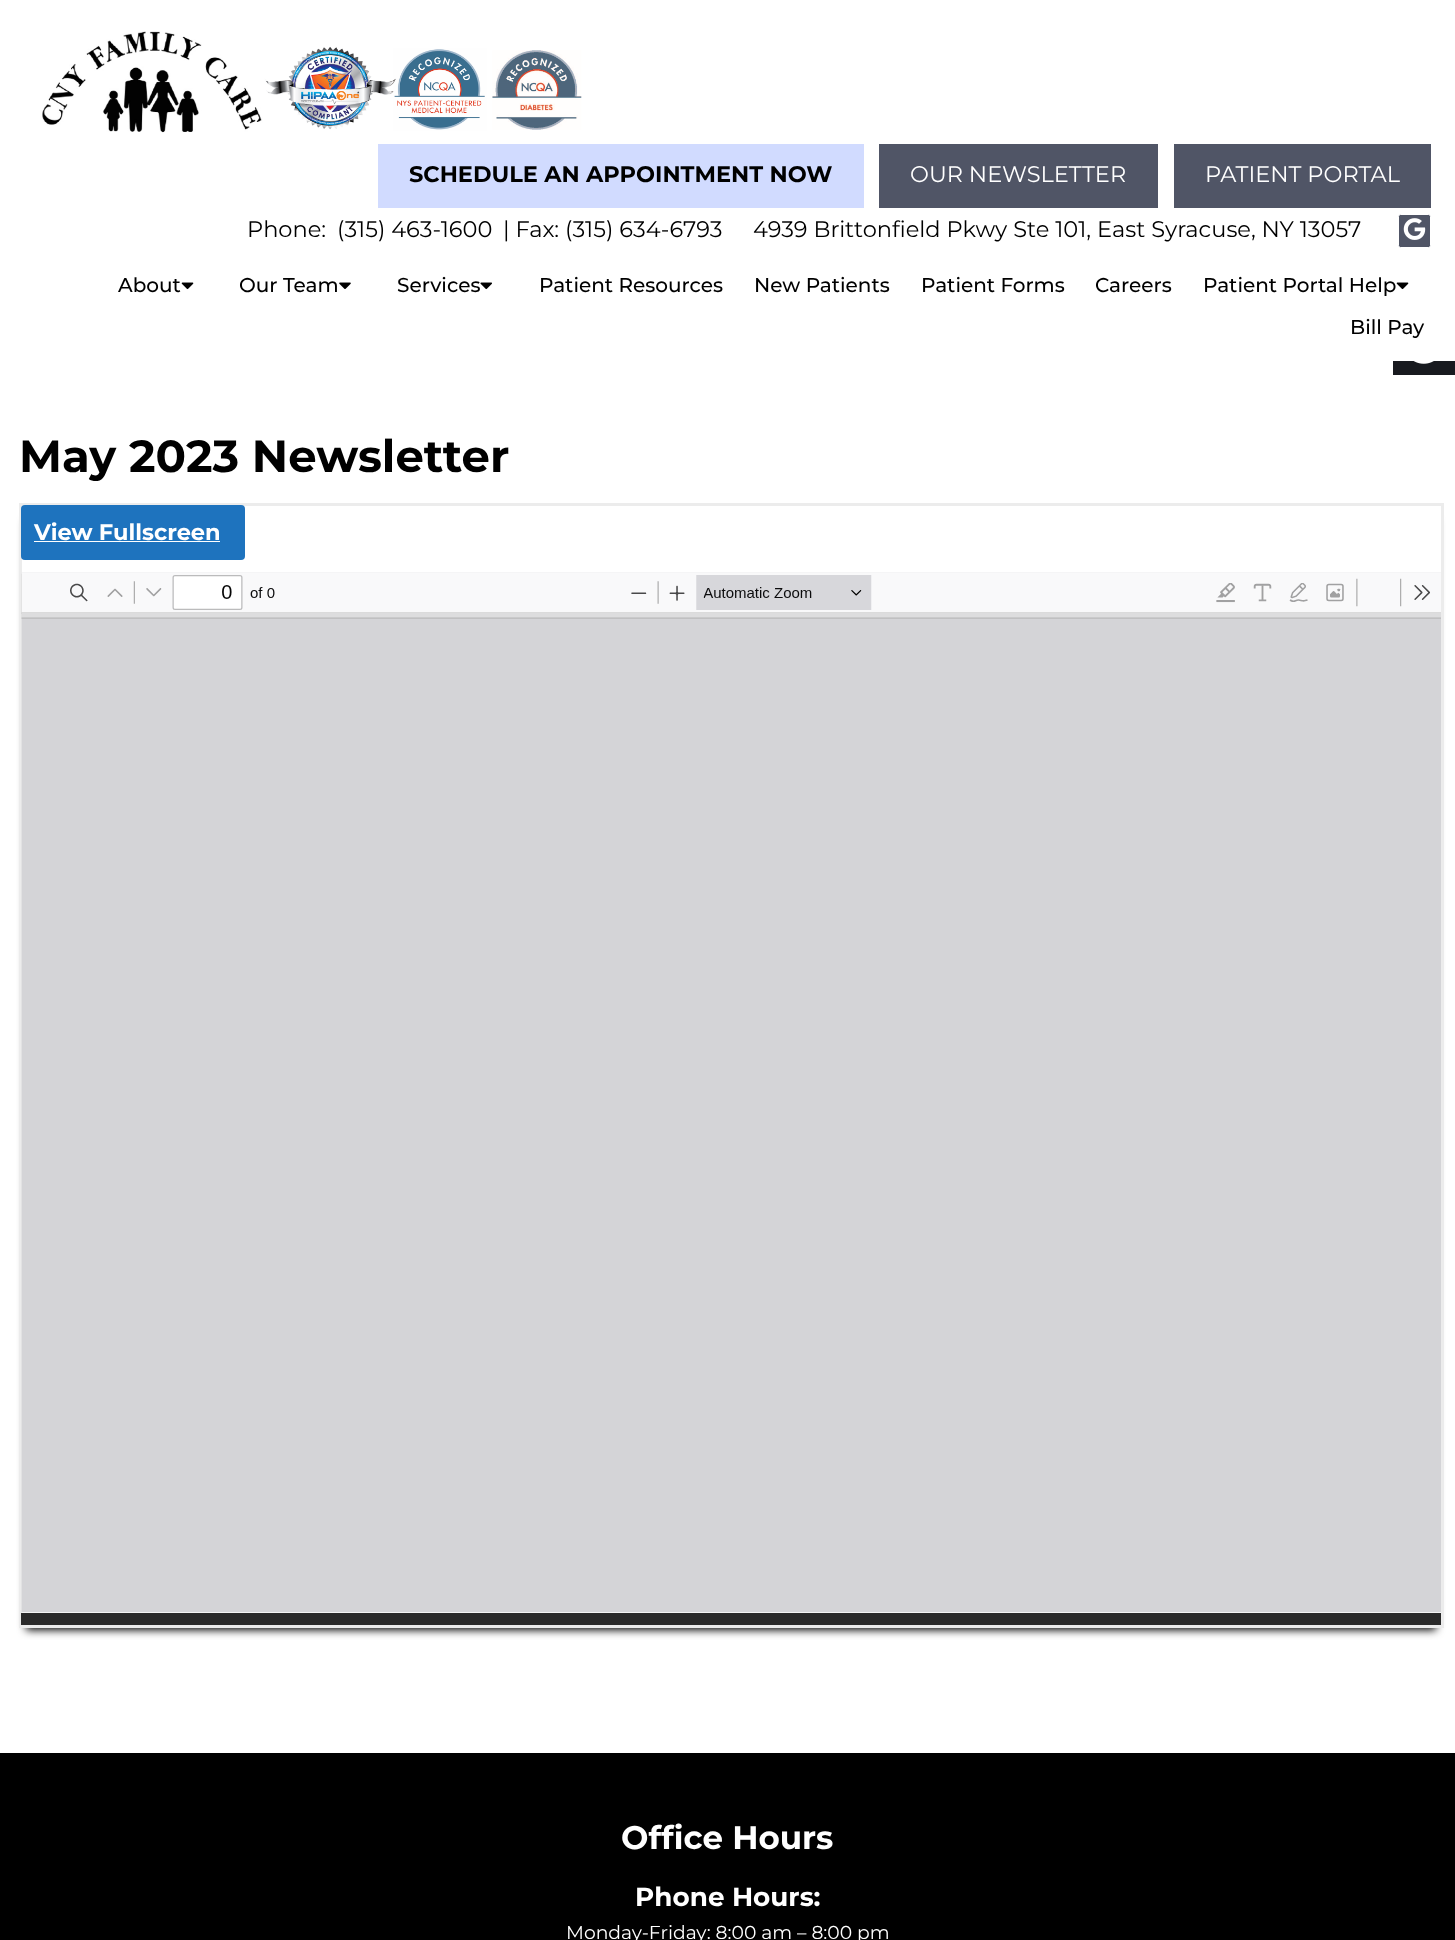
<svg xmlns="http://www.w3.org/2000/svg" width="1455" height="1940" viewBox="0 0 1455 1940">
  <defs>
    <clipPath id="clip1"><path d="M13 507H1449V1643H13ZM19 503H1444V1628H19Z" clip-rule="evenodd"/></clipPath>
  </defs>
  <rect width="100%" height="100%" fill="#fff"/>
  <image x="42" y="31" width="540" height="102" href="img/1.png"/>
  <path d="M378 144h486v64H378z" fill="#d1dbff"/>
  <path d="M879 144h279v64H879z" fill="#505566"/>
  <path d="M1174 144h257v64H1174z" fill="#505566"/>
  <rect x="1398.5" y="214.5" width="32" height="33" rx="2" fill="#505566" stroke="#fff"/>
  <image x="1403" y="218" width="23" height="22" href="img/2.png"/>
  <image x="181" y="282" width="13" height="8" href="img/3.png"/>
  <image x="339" y="282" width="12" height="7" href="img/4.png"/>
  <image x="480" y="282" width="12" height="8" href="img/5.png"/>
  <image x="1396" y="282" width="13" height="8" href="img/3.png"/>
  <g clip-path="url(#clip1)">
    <path d="M26 520h1410v1110H26z" fill="#000" filter="blur(4px)"/>
  </g>
  <path d="M20.5 504.5h1422v1122H20.5z" fill="none" stroke="#ececec" stroke-width="3"/>
  <rect x="21" y="505" width="224" height="55" rx="4" fill="#1e73be"/>
  <path d="M34 541h186v1H34z" fill="#fff"/>
  <image x="21" y="572" width="1420" height="1041" href="img/6.png"/>
  <path d="M21 1613h1420v12H21z" fill="#2a2a2a"/>
  <path d="M0 1753h1455v187H0z" fill="#000"/>
  <path d="M1393 361h62v14H1393z" fill="#181a1f"/>
  <image x="1413" y="361" width="21" height="3" href="img/7.png"/>
  <text x="409" y="182" font-family="Montserrat" font-size="22.5" font-weight="bold" fill="#000">SCHEDULE AN APPOINTMENT NOW</text>
  <g font-family="Montserrat" font-size="22.5" fill="#fff">
    <text x="910" y="182">OUR NEWSLETTER</text>
    <text x="1205" y="182">PATIENT PORTAL</text>
  </g>
  <g font-family="Montserrat" font-size="22.5" fill="#000">
    <text x="247" y="237">Phone:</text>
    <text x="337" y="237">(315) 463-1600</text>
    <text x="503" y="237">| Fax: (315) 634-6793</text>
    <text x="753" y="237">4939 Brittonfield Pkwy Ste 101, East Syracuse, NY 13057</text>
  </g>
  <g font-family="Montserrat" font-size="20" font-weight="500" fill="#000">
    <text x="118" y="292">About</text>
    <text x="239" y="292">Our Team</text>
    <text x="397" y="292">Services</text>
    <text x="539" y="292">Patient Resources</text>
    <text x="754" y="292">New Patients</text>
    <text x="921" y="292">Patient Forms</text>
    <text x="1095" y="292">Careers</text>
    <text x="1203" y="292">Patient Portal Help</text>
    <text x="1350" y="334">Bill Pay</text>
  </g>
  <text x="19" y="472" font-family="Montserrat" font-size="45" font-weight="bold" fill="#000">May 2023 Newsletter</text>
  <text x="34" y="540" font-family="Montserrat" font-size="22.5" font-weight="bold" fill="#fff">View Fullscreen</text>
  <text x="621" y="1849" font-family="Montserrat" font-size="32.5" font-weight="bold" fill="#fff">Office Hours</text>
  <text x="635" y="1906" font-family="Montserrat" font-size="26.25" font-weight="bold" fill="#fff">Phone Hours:</text>
  <text x="566" y="1939" font-family="Montserrat" font-size="18.75" fill="#fff">Monday-Friday: 8:00 am – 8:00 pm</text>
</svg>
